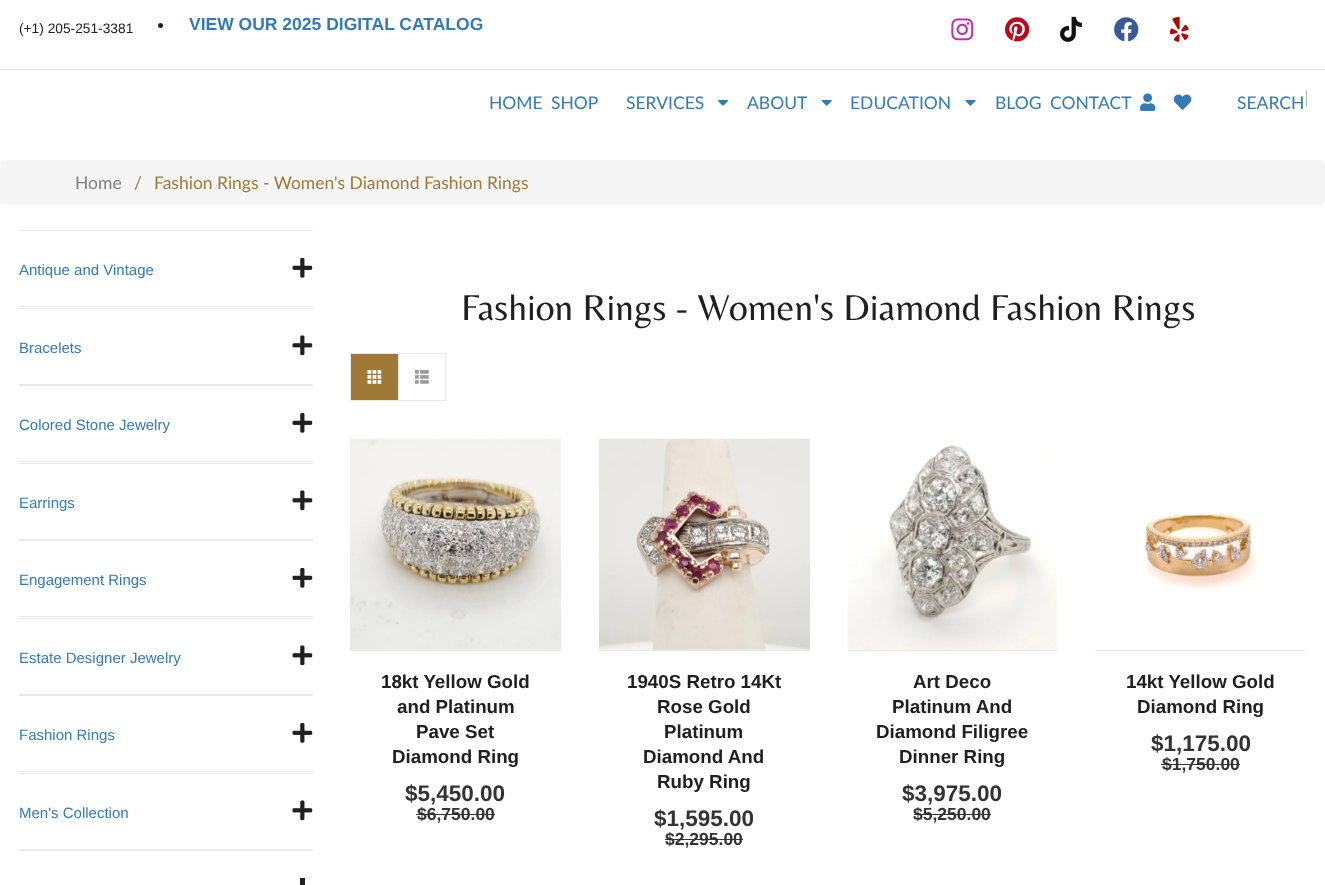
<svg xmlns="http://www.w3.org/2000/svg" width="1325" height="885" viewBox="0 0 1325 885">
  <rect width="100%" height="100%" fill="#fff"/>
  <circle cx="160.5" cy="25.5" r="2.5" fill="#202020"/>
  <image x="951" y="18" width="23" height="23" href="img/1.png"/>
  <image x="1005" y="17" width="25" height="25" href="img/2.png"/>
  <image x="1060" y="16" width="22" height="26" href="img/3.png"/>
  <image x="1114" y="17" width="25" height="25" href="img/4.png"/>
  <image x="1170" y="16" width="19" height="26" href="img/5.png"/>
  <path d="M0 69h1325v1H0z" fill="#e6e6e6"/>
  <image x="717" y="100" width="11" height="6" href="img/6.png"/>
  <image x="821" y="100" width="11" height="6" href="img/7.png"/>
  <image x="965" y="100" width="11" height="6" href="img/8.png"/>
  <image x="1140" y="93" width="16" height="18" href="img/9.png"/>
  <image x="1173" y="94" width="19" height="16" href="img/10.png"/>
  <path d="M1306 90h1v16H1306z" fill="#b1b1b1"/>
  <rect y="160" width="1325" height="45" rx="5" fill="#f5f5f5"/>
  <path d="M19 230h294v1H19z" fill="#eaeaea"/>
  <path d="M19 306h294v1H19z" fill="#eaeaea"/>
  <image x="292" y="258" width="21" height="20" href="img/11.png"/>
  <path d="M19 308h294v1H19z" fill="#eaeaea"/>
  <path d="M19 384h294v2H19z" fill="#eaeaea"/>
  <image x="292" y="335" width="21" height="21" href="img/12.png"/>
  <path d="M19 461h294v1H19z" fill="#eaeaea"/>
  <image x="292" y="413" width="21" height="20" href="img/11.png"/>
  <path d="M19 463h294v1H19z" fill="#eaeaea"/>
  <path d="M19 539h294v2H19z" fill="#eaeaea"/>
  <image x="292" y="490" width="21" height="21" href="img/12.png"/>
  <path d="M19 616h294v1H19z" fill="#eaeaea"/>
  <image x="292" y="568" width="21" height="20" href="img/11.png"/>
  <path d="M19 618h294v1H19z" fill="#eaeaea"/>
  <path d="M19 694h294v2H19z" fill="#eaeaea"/>
  <image x="292" y="645" width="21" height="21" href="img/12.png"/>
  <path d="M19 771h294v1H19z" fill="#eaeaea"/>
  <image x="292" y="723" width="21" height="20" href="img/11.png"/>
  <path d="M19 773h294v1H19z" fill="#eaeaea"/>
  <path d="M19 849h294v2H19z" fill="#eaeaea"/>
  <image x="292" y="800" width="21" height="21" href="img/12.png"/>
  <path d="M300 878h5v7H300z" fill="#202020"/>
  <path d="M351 354h47v46H351z" fill="#a07936"/>
  <path d="M350 353h48v1H350z" fill="#eaeaea"/>
  <path d="M350 400h48v1H350z" fill="#eaeaea"/>
  <path d="M350 353h1v48H350z" fill="#eaeaea"/>
  <image x="367" y="370" width="15" height="14" href="img/13.png"/>
  <path d="M398.5 353.5h47v47H398.5z" fill="none" stroke="#eaeaea"/>
  <image x="415" y="370" width="14" height="14" href="img/14.png"/>
  <path d="M350 650h211v1H350z" fill="#e5e5e5"/>
  <image x="350" y="438" width="211" height="212" href="img/15.png"/>
  <path d="M416 814h79v1H416z" fill="#333"/>
  <path d="M599 650h211v1H599z" fill="#e5e5e5"/>
  <image x="599" y="438" width="211" height="212" href="img/16.png"/>
  <path d="M665 839h78v1H665z" fill="#333"/>
  <path d="M848 650h210v1H848z" fill="#e5e5e5"/>
  <image x="847" y="445" width="211" height="205" href="img/17.png"/>
  <path d="M914 814h77v1H914z" fill="#333"/>
  <path d="M1095 650h211v1H1095z" fill="#e5e5e5"/>
  <image x="1143" y="513" width="118" height="82" href="img/18.png"/>
  <path d="M1161 764h79v1H1161z" fill="#333"/>
  <text x="19" y="33" font-family="Liberation Sans" font-size="13.75" fill="#202020">(+1) 205-251-3381</text>
  <text x="189" y="30" font-family="Liberation Sans" font-size="17.5" font-weight="bold" fill="#337ab7">VIEW OUR 2025 DIGITAL CATALOG</text>
  <g font-family="Lato" font-size="17.5" fill="#337ab7">
    <text x="489" y="109">HOME</text>
    <text x="551" y="109">SHOP</text>
    <text x="626" y="109">SERVICES</text>
    <text x="747" y="109">ABOUT</text>
    <text x="850" y="109">EDUCATION</text>
    <text x="995" y="109">BLOG</text>
    <text x="1050" y="109">CONTACT</text>
    <text x="1237" y="109">SEARCH</text>
  </g>
  <text x="75" y="189" font-family="Lato" font-size="17.5" fill="#808080">Home</text>
  <g font-family="Lato" font-size="17.5" fill="#a07936">
    <text x="134" y="189">/</text>
    <text x="154" y="189">Fashion Rings - Women's Diamond Fashion Rings</text>
  </g>
  <g font-family="Liberation Sans" font-size="15" fill="#337ab7">
    <text x="19" y="275">Antique and Vintage</text>
    <text x="19" y="353">Bracelets</text>
    <text x="19" y="430">Colored Stone Jewelry</text>
    <text x="19" y="508">Earrings</text>
    <text x="19" y="585">Engagement Rings</text>
    <text x="19" y="663">Estate Designer Jewelry</text>
    <text x="19" y="740">Fashion Rings</text>
    <text x="19" y="818">Men's Collection</text>
  </g>
  <text x="461" y="320" font-family="Belleza" font-size="37.5" fill="#202020">Fashion Rings - Women's Diamond Fashion Rings</text>
  <g font-family="Liberation Sans" font-size="18.75" font-weight="bold" fill="#202020">
    <text x="381" y="688">18kt Yellow Gold</text>
    <text x="397" y="713">and Platinum</text>
    <text x="416" y="738">Pave Set</text>
    <text x="392" y="763">Diamond Ring</text>
  </g>
  <text x="405" y="801" font-family="Liberation Sans" font-size="22.5" font-weight="bold" fill="#333">$5,450.00</text>
  <text x="417" y="820" font-family="Liberation Sans" font-size="17.5" font-weight="bold" fill="#333">$6,750.00</text>
  <g font-family="Liberation Sans" font-size="18.75" font-weight="bold" fill="#202020">
    <text x="627" y="688">1940S Retro 14Kt</text>
    <text x="657" y="713">Rose Gold</text>
    <text x="664" y="738">Platinum</text>
    <text x="643" y="763">Diamond And</text>
    <text x="657" y="788">Ruby Ring</text>
  </g>
  <text x="654" y="826" font-family="Liberation Sans" font-size="22.5" font-weight="bold" fill="#333">$1,595.00</text>
  <text x="665" y="845" font-family="Liberation Sans" font-size="17.5" font-weight="bold" fill="#333">$2,295.00</text>
  <g font-family="Liberation Sans" font-size="18.75" font-weight="bold" fill="#202020">
    <text x="913" y="688">Art Deco</text>
    <text x="892" y="713">Platinum And</text>
    <text x="876" y="738">Diamond Filigree</text>
    <text x="899" y="763">Dinner Ring</text>
  </g>
  <text x="902" y="801" font-family="Liberation Sans" font-size="22.5" font-weight="bold" fill="#333">$3,975.00</text>
  <text x="913" y="820" font-family="Liberation Sans" font-size="17.5" font-weight="bold" fill="#333">$5,250.00</text>
  <g font-family="Liberation Sans" font-size="18.75" font-weight="bold" fill="#202020">
    <text x="1126" y="688">14kt Yellow Gold</text>
    <text x="1137" y="713">Diamond Ring</text>
  </g>
  <text x="1151" y="751" font-family="Liberation Sans" font-size="22.5" font-weight="bold" fill="#333">$1,175.00</text>
  <text x="1162" y="770" font-family="Liberation Sans" font-size="17.5" font-weight="bold" fill="#333">$1,750.00</text>
</svg>
